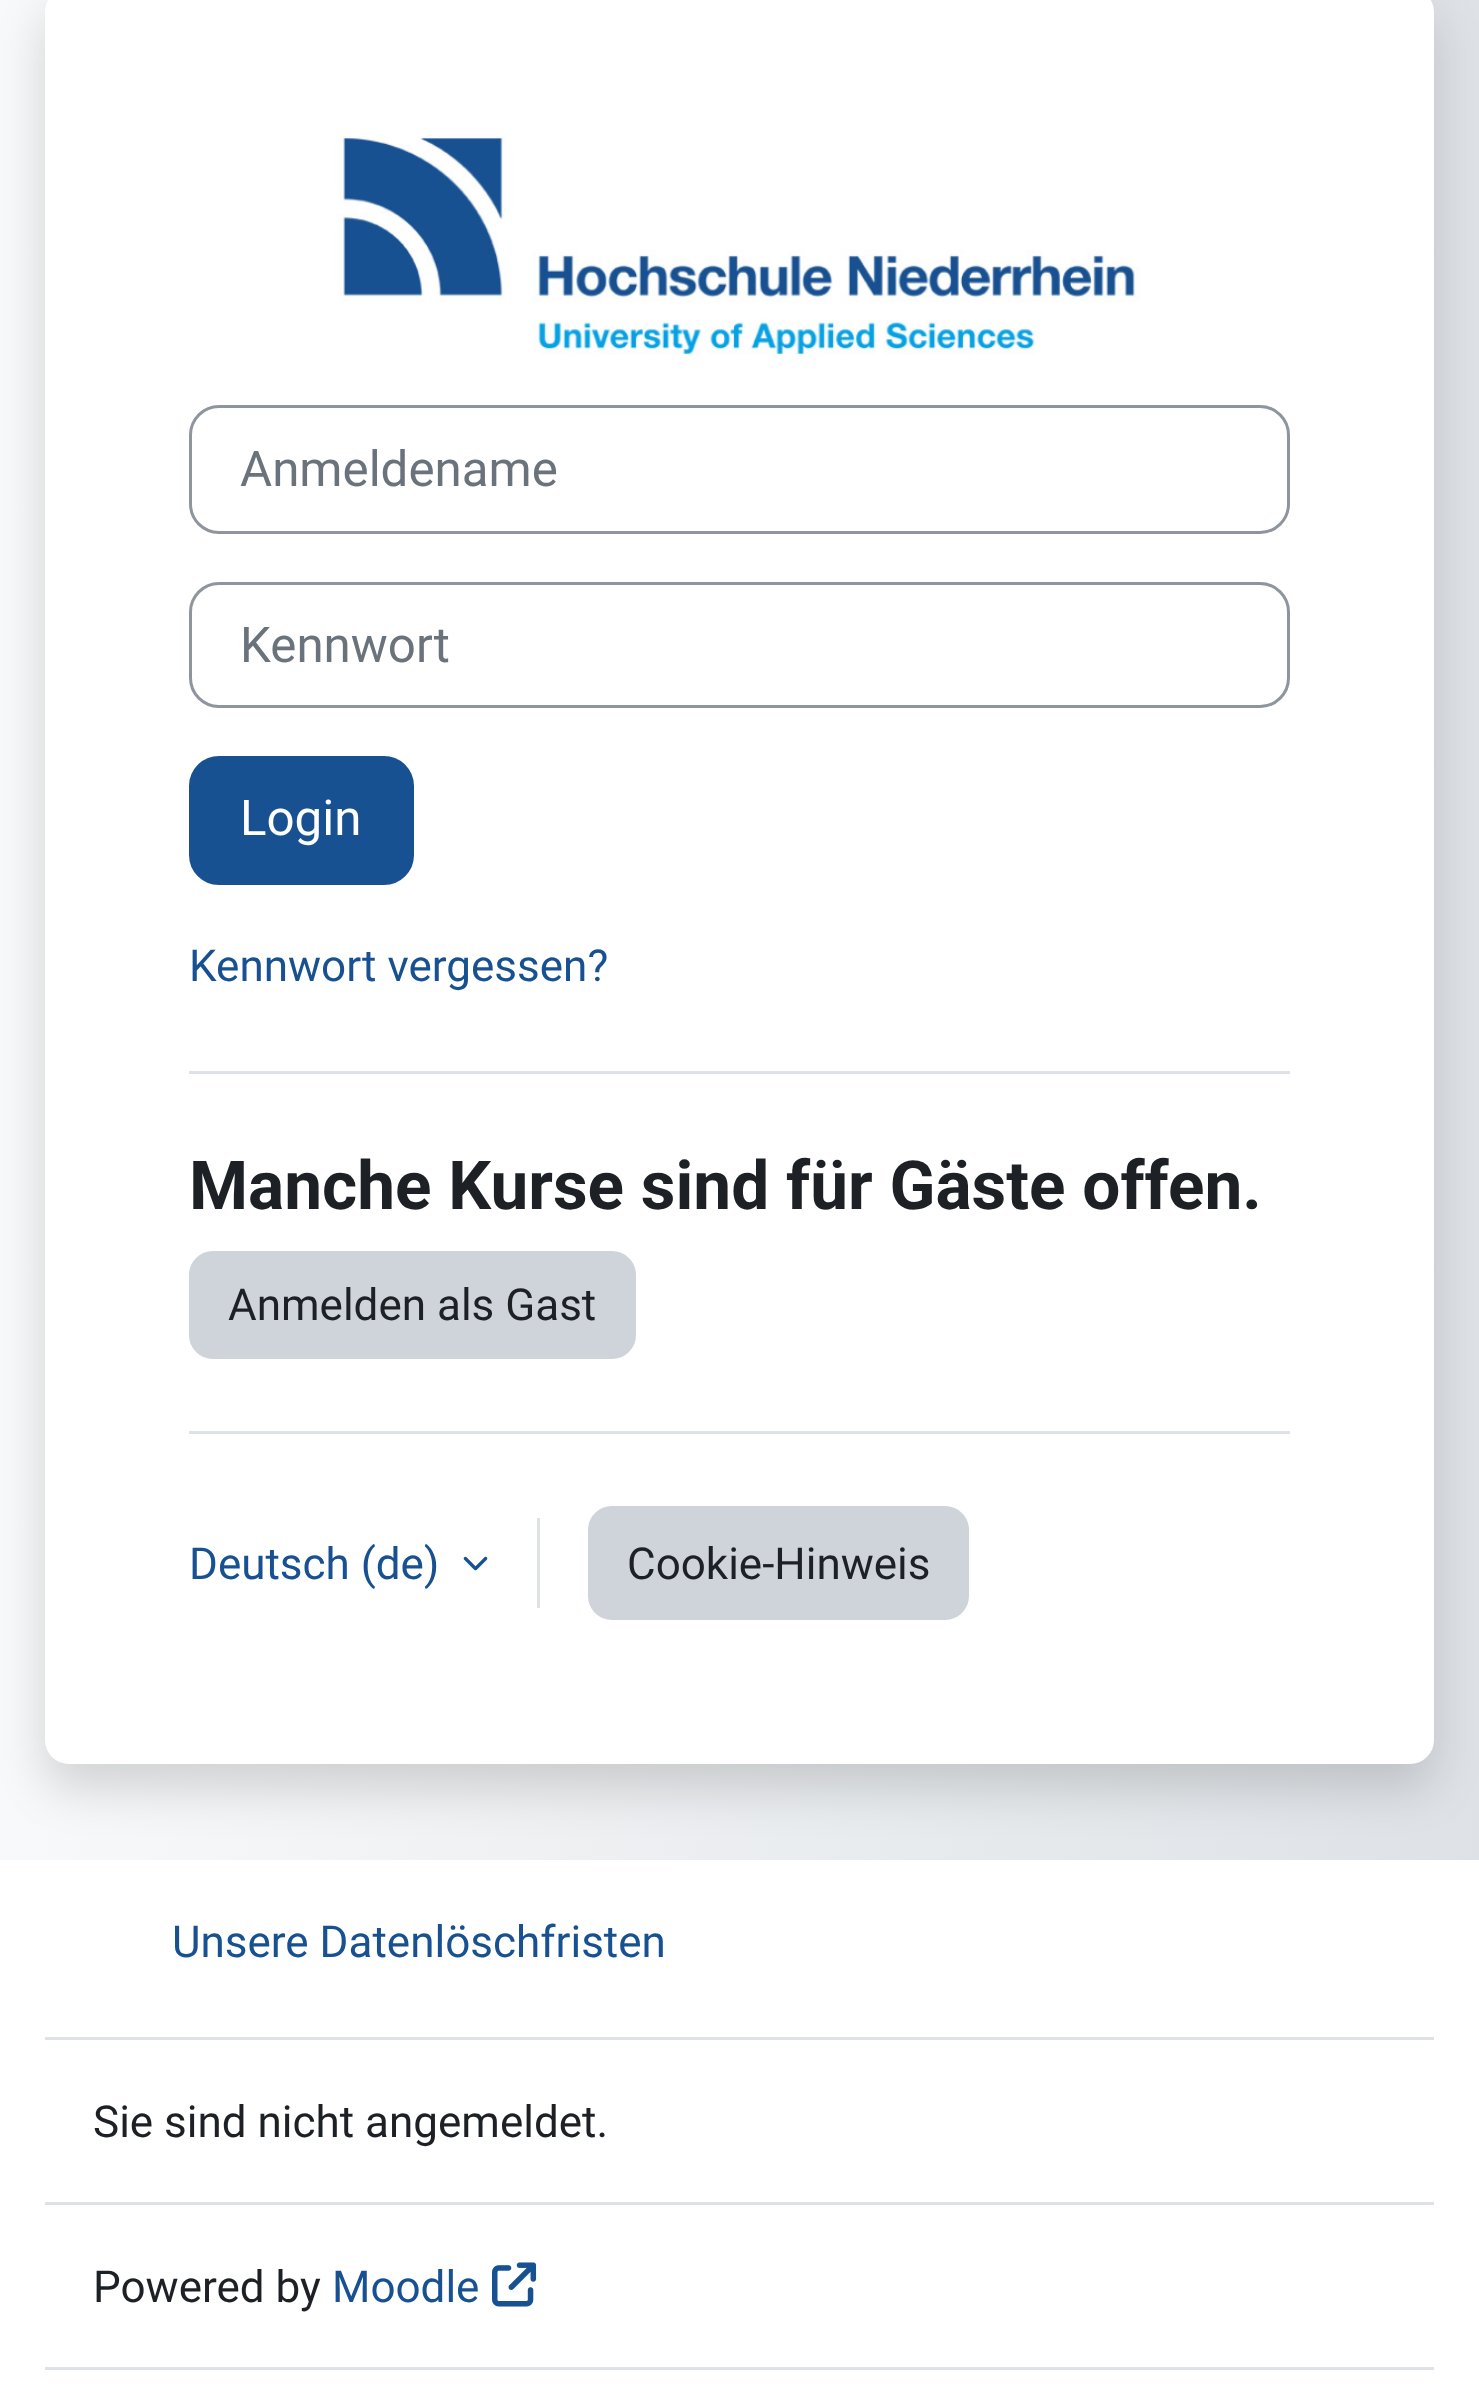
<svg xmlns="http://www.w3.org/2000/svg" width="1479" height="2390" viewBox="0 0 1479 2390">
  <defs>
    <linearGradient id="g1" gradientUnits="userSpaceOnUse" x1="0" y1="876" x2="1479" y2="876"><stop offset="0" stop-color="#f8f9fa"/><stop offset="1" stop-color="#dee2e6"/></linearGradient>
  </defs>
  <rect width="100%" height="100%" fill="#fff"/>
  <path d="M0 0h1479v1860H0z" fill="url(#g1)"/>
  <rect x="45" y="12" width="1389" height="1776" rx="24" fill="#00000026" filter="blur(24px)"/>
  <rect x="45" y="-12" width="1389" height="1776" rx="24" fill="#fff"/>
  <image x="339" y="135" width="801" height="220" href="img/1.png"/>
  <rect x="190.5" y="406.5" width="1098" height="126" rx="28.5" fill="none" stroke="#8f959e" stroke-width="3"/>
  <rect x="190.5" y="583.5" width="1098" height="123" rx="28.5" fill="none" stroke="#8f959e" stroke-width="3"/>
  <rect x="190.5" y="757.5" width="222" height="126" rx="28.5" fill="#185191" stroke="#185191" stroke-width="3"/>
  <path d="M189 1071h1101v3H189z" fill="#dee2e6"/>
  <rect x="190.5" y="1252.5" width="444" height="105" rx="22.5" fill="#ced4da" stroke="#ced4da" stroke-width="3"/>
  <path d="M189 1431h1101v3H189z" fill="#dee2e6"/>
  <image x="463" y="1556" width="25" height="15" href="img/2.png"/>
  <path d="M537 1518h3v90H537z" fill="#dee2e6"/>
  <rect x="589.5" y="1507.5" width="378" height="111" rx="22.5" fill="#ced4da" stroke="#ced4da" stroke-width="3"/>
  <path d="M45 2037h1389v3H45z" fill="#dee2e6"/>
  <path d="M45 2202h1389v3H45z" fill="#dee2e6"/>
  <path d="M45 2367h1389v3H45z" fill="#dee2e6"/>
  <image x="492" y="2262" width="45" height="45" href="img/3.png"/>
  <g font-family="Roboto" font-size="49.25" fill="#6a737b">
    <text x="240" y="486">Anmeldename</text>
    <text x="240" y="662">Kennwort</text>
  </g>
  <text x="240" y="835" font-family="Roboto" font-size="49.25" fill="#fff">Login</text>
  <text x="189" y="981" font-family="Roboto" font-size="44" fill="#185191">Kennwort vergessen?</text>
  <text x="189" y="1209" font-family="Roboto" font-size="67.5" font-weight="bold" fill="#1d2125">Manche Kurse sind für Gäste offen.</text>
  <text x="228" y="1320" font-family="Roboto" font-size="44" fill="#1d2125">Anmelden als Gast</text>
  <text x="189" y="1579" font-family="Roboto" font-size="44" fill="#185191">Deutsch (de)</text>
  <text x="627" y="1579" font-family="Roboto" font-size="44" fill="#1d2125">Cookie-Hinweis</text>
  <text x="172" y="1957" font-family="Roboto" font-size="44" fill="#185191">Unsere Datenlöschfristen</text>
  <g font-family="Roboto" font-size="44" fill="#1d2125">
    <text x="93" y="2137">Sie sind nicht angemeldet.</text>
    <text x="93" y="2302">Powered by</text>
  </g>
  <text x="332" y="2302" font-family="Roboto" font-size="44" fill="#185191">Moodle</text>
</svg>
